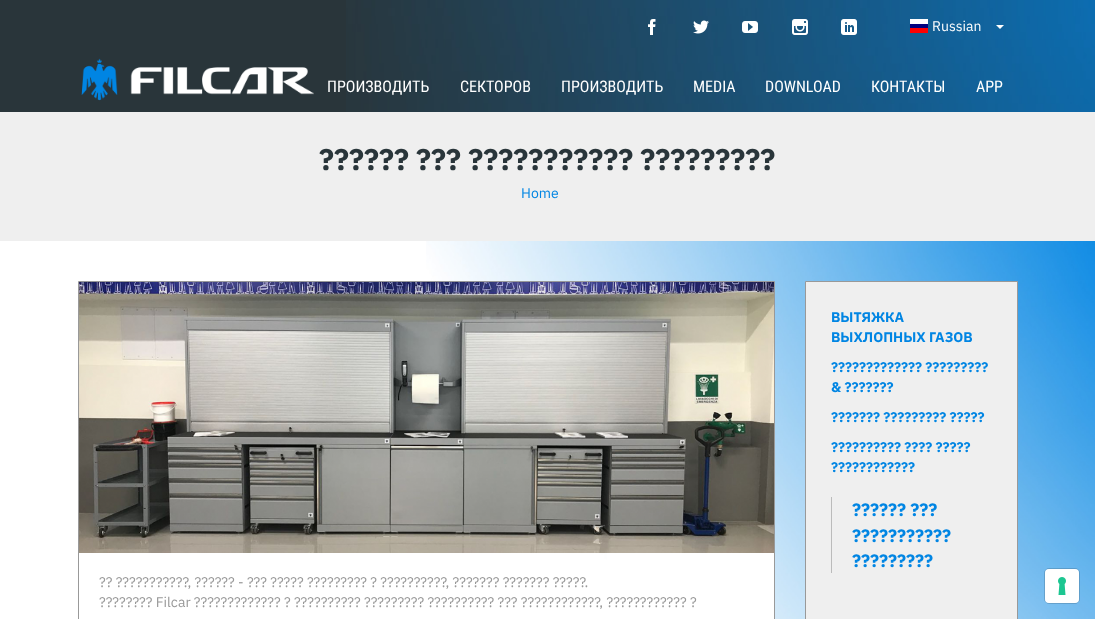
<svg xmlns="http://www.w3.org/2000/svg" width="1095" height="619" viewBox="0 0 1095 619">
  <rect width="100%" height="100%" fill="#fff"/>
  <path d="M0 0h346v112H0z" fill="#29353a"/>
  <image x="346" y="0" width="749" height="112" href="img/1.png"/>
  <image x="648" y="19" width="8" height="16" href="img/2.png"/>
  <image x="693" y="20" width="16" height="14" href="img/3.png"/>
  <image x="742" y="21" width="16" height="12" href="img/4.png"/>
  <image x="792" y="19" width="16" height="16" href="img/5.png"/>
  <image x="841" y="19" width="16" height="16" href="img/6.png"/>
  <path d="M910 19h18v5H910z" fill="#fff"/>
  <path d="M910 24h18v4H910z" fill="#01017e"/>
  <path d="M910 28h18v5H910z" fill="#fe0101"/>
  <path d="M996 25H1004L1000 29Z" fill="#fff"/>
  <image x="81" y="58" width="233" height="43" href="img/7.png"/>
  <path d="M0 112h1095v129H0z" fill="#efefef"/>
  <image x="426" y="241" width="669" height="378" href="img/8.png"/>
  <path d="M805.5 281.5h212v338H805.5z" fill="#efefef" stroke="#999"/>
  <path d="M831 497h1v76H831z" fill="#bbb"/>
  <path d="M607 553h167v66H607z" fill="#fff"/>
  <path d="M78.5 281.5h696v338H78.5z" fill="none" stroke="#999"/>
  <image x="79" y="282" width="695" height="271" href="img/9.png"/>
  <rect x="1044.5" y="568.5" width="35" height="35" rx="4.5" fill="none" stroke="#00000026"/>
  <rect x="1045" y="569" width="34" height="34" rx="4" fill="#fff"/>
  <image x="1058" y="577" width="8" height="18" href="img/10.png"/>
  <text x="932" y="31" font-family="IBM Plex Sans" font-size="14" fill="#fff">Russian</text>
  <g font-family="Roboto Condensed" font-size="16" fill="#fff">
    <text x="327" y="92">ПРОИЗВОДИТЬ</text>
    <text x="460" y="92">СЕКТОРОВ</text>
    <text x="561" y="92">ПРОИЗВОДИТЬ</text>
    <text x="693" y="92">MEDIA</text>
    <text x="765" y="92">DOWNLOAD</text>
    <text x="871" y="92">КОНТАКТЫ</text>
    <text x="976" y="92">APP</text>
  </g>
  <text x="319" y="170" font-family="IBM Plex Sans" font-size="30" font-weight="bold" fill="#29353a">?????? ??? ??????????? ?????????</text>
  <text x="521" y="198" font-family="IBM Plex Sans" font-size="14" fill="#0085e3">Home</text>
  <g font-family="IBM Plex Sans" font-size="14" font-weight="bold" fill="#0085e3">
    <text x="831" y="322">ВЫТЯЖКА</text>
    <text x="831" y="342">ВЫХЛОПНЫХ ГАЗОВ</text>
    <text x="831" y="372">????????????? ?????????</text>
    <text x="831" y="392">&amp; ???????</text>
    <text x="831" y="422">??????? ????????? ?????</text>
    <text x="831" y="452">?????????? ???? ?????</text>
    <text x="831" y="472">????????????</text>
  </g>
  <g font-family="IBM Plex Sans" font-size="18" font-weight="bold" fill="#0085e3">
    <text x="852" y="516">?????? ???</text>
    <text x="852" y="542">???????????</text>
    <text x="852" y="567">?????????</text>
  </g>
  <g font-family="IBM Plex Sans" font-size="14" fill="#999">
    <text x="99" y="587">?? ???????????, ?????? - ??? ????? ????????? ? ??????????, ??????? ??????? ?????.</text>
    <text x="99" y="607">???????? Filcar ????????????? ? ?????????? ????????? ?????????? ??? ????????????, ???????????? ?</text>
  </g>
</svg>
